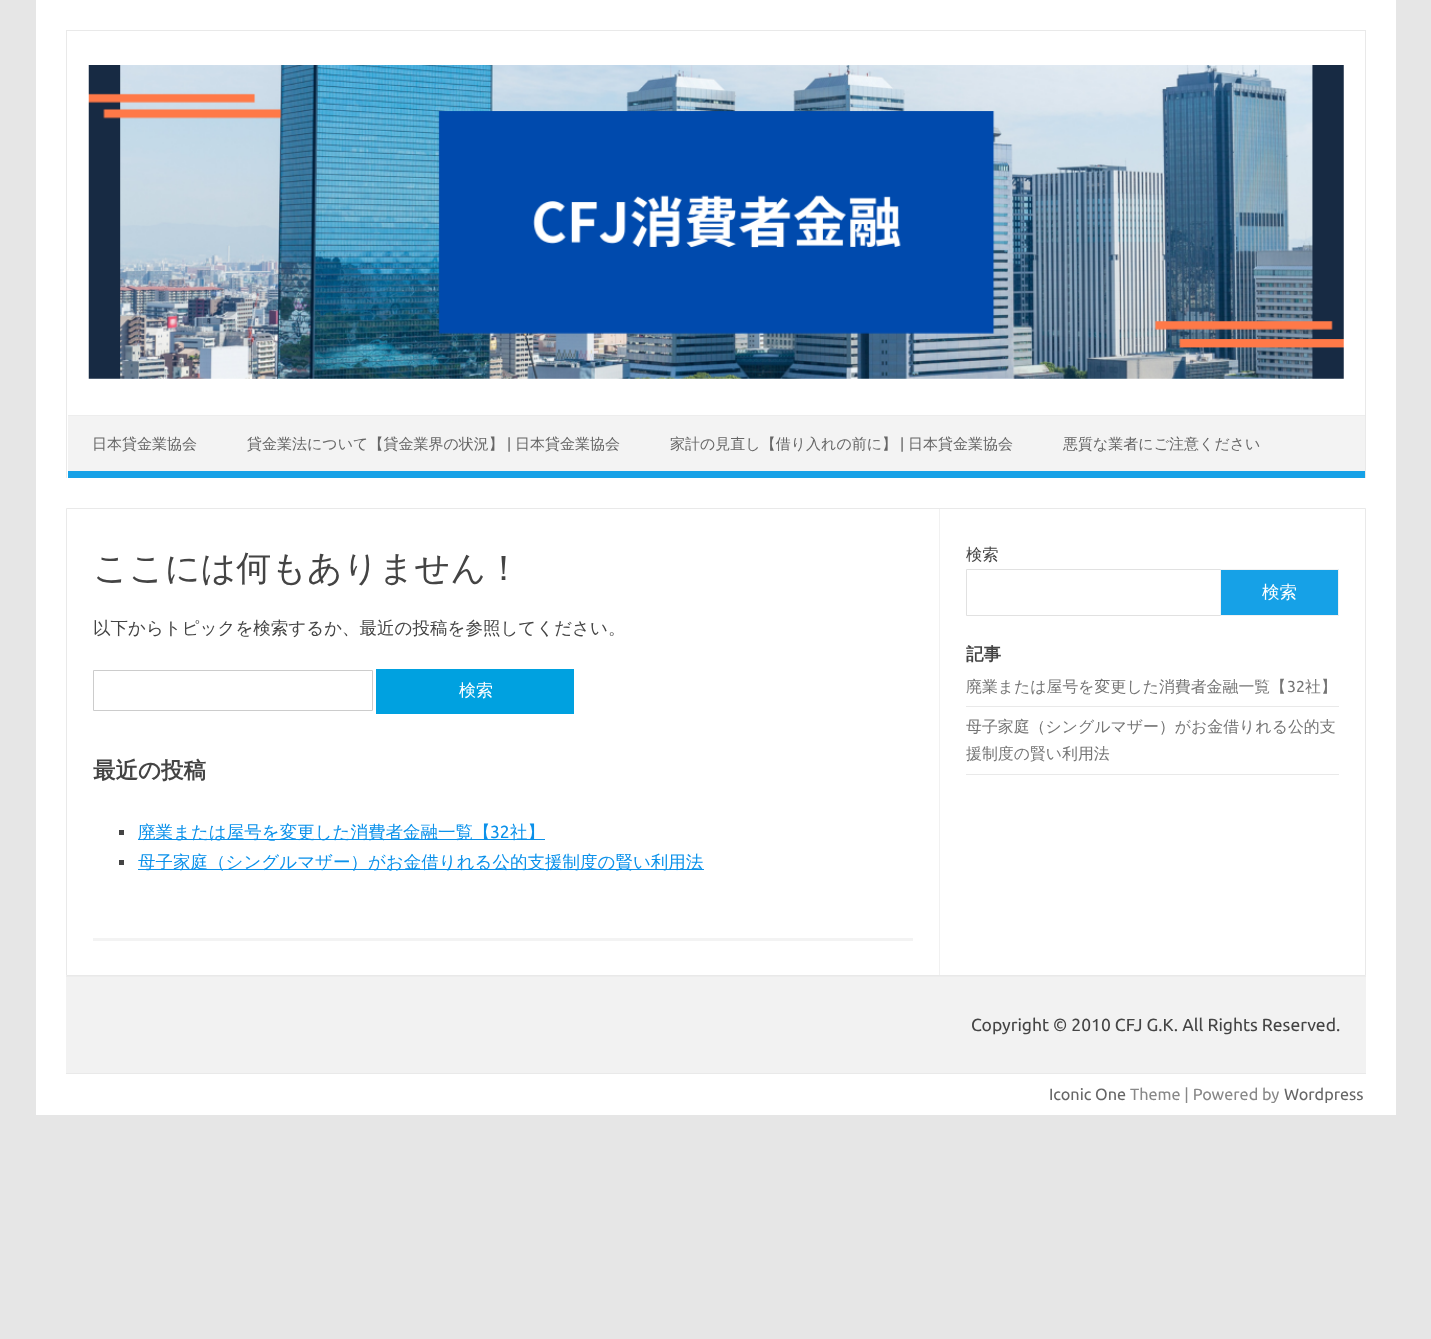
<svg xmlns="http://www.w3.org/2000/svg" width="1431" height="1339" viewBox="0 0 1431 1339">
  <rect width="100%" height="100%" fill="#e6e6e6"/>
  <path d="M36 0h1360v1115H36z" fill="#fff"/>
  <path d="M66 30h1300v1H66z" fill="#e9e9e9"/>
  <path d="M1365 30h1v448H1365z" fill="#e9e9e9"/>
  <path d="M66 30h1v448H66z" fill="#e9e9e9"/>
  <image x="88" y="65" width="1256" height="314" href="img/1.png"/>
  <path d="M68 416h1297v55H68z" fill="#f3f3f3"/>
  <path d="M68 415h1297v1H68z" fill="#ededed"/>
  <path d="M68 471h1297v7H68z" fill="#16a1e7"/>
  <path d="M66.5 508.5h1299v467H66.5z" fill="none" stroke="#e9e9e9"/>
  <path d="M939 509h1v466H939z" fill="#f1f1f1"/>
  <path d="M93 938h820v3H93z" fill="#f3f3f3"/>
  <path d="M93.5 670.5h279v40H93.5z" fill="none" stroke="#ccc"/>
  <path d="M376 669h198v45H376z" fill="#00a1e0"/>
  <path d="M119 830h5v5H119z" fill="#444"/>
  <path d="M138 839h407v1H138z" fill="#0b91ea"/>
  <path d="M119 860h5v5H119z" fill="#444"/>
  <path d="M138 869h566v1H138z" fill="#0b91ea"/>
  <path d="M966.5 569.5h256v46H966.5z" fill="none" stroke="#e1e1e1"/>
  <path d="M1220.5 569.5h118v46H1220.5z" fill="#16a1e7" stroke="#f1f1f1"/>
  <path d="M966 706h373v1H966z" fill="#e9e9e9"/>
  <path d="M966 774h373v1H966z" fill="#e9e9e9"/>
  <path d="M66 977h1300v96H66z" fill="#f2f2f2"/>
  <path d="M66 976h1300v1H66z" fill="#ededed"/>
  <path d="M66 1073h1300v1H66z" fill="#e9e9e9"/>
  <g font-family="WenQuanYi Zen Hei" font-size="15" font-weight="500" fill="#666">
    <text x="92" y="449">日本貸金業協会</text>
    <text x="247" y="449">貸金業法について【貸金業界の状況】</text>
  </g>
  <text x="507" y="449" font-family="Ubuntu" font-size="15" fill="#666">|</text>
  <g font-family="WenQuanYi Zen Hei" font-size="15" font-weight="500" fill="#666">
    <text x="515" y="449">日本貸金業協会</text>
    <text x="670" y="449">家計の見直し【借り入れの前に】</text>
  </g>
  <text x="900" y="449" font-family="Ubuntu" font-size="15" fill="#666">|</text>
  <g font-family="WenQuanYi Zen Hei" font-size="15" font-weight="500" fill="#666">
    <text x="908" y="449">日本貸金業協会</text>
    <text x="1063" y="449">悪質な業者にご注意ください</text>
  </g>
  <text x="93" y="580" font-family="WenQuanYi Zen Hei" font-size="35" font-weight="500" fill="#444">ここには何もありません！</text>
  <text x="93" y="634" font-family="WenQuanYi Zen Hei" font-size="17.5" font-weight="500" fill="#444">以下からトピックを検索するか、最近の投稿を参照してください。</text>
  <text x="459" y="696" font-family="WenQuanYi Zen Hei" font-size="17" font-weight="500" fill="#fff">検索</text>
  <text x="93" y="778" font-family="WenQuanYi Zen Hei" font-size="22.5" font-weight="bold" fill="#444">最近の投稿</text>
  <text x="138" y="838" font-family="WenQuanYi Zen Hei" font-size="17.5" font-weight="500" fill="#0b91ea">廃業または屋号を変更した消費者金融一覧【</text>
  <text x="490" y="838" font-family="Ubuntu" font-size="17.5" fill="#0b91ea">32</text>
  <g font-family="WenQuanYi Zen Hei" font-size="17.5" font-weight="500" fill="#0b91ea">
    <text x="510" y="838">社】</text>
    <text x="138" y="868">母子家庭（シングルマザー）がお金借りれる公的支援制度の賢い利用法</text>
  </g>
  <text x="966" y="560" font-family="WenQuanYi Zen Hei" font-size="16.25" font-weight="500" fill="#444">検索</text>
  <text x="1262" y="598" font-family="WenQuanYi Zen Hei" font-size="17.5" font-weight="500" fill="#fff">検索</text>
  <text x="966" y="660" font-family="WenQuanYi Zen Hei" font-size="17.5" font-weight="bold" fill="#444">記事</text>
  <text x="966" y="692" font-family="WenQuanYi Zen Hei" font-size="15.9" font-weight="500" fill="#757575">廃業または屋号を変更した消費者金融一覧【</text>
  <text x="1287" y="692" font-family="Ubuntu" font-size="15.9" fill="#757575">32</text>
  <g font-family="WenQuanYi Zen Hei" font-size="15.9" font-weight="500" fill="#757575">
    <text x="1305" y="692">社】</text>
    <text x="966" y="732">母子家庭（シングルマザー）がお金借りれる公的支</text>
    <text x="966" y="759">援制度の賢い利用法</text>
  </g>
  <text x="971" y="1031" font-family="Ubuntu" font-size="17.5" fill="#444">Copyright © 2010 CFJ G.K. All Rights Reserved.</text>
  <text x="1049" y="1100" font-family="Ubuntu" font-size="16.25" fill="#666">Iconic One</text>
  <text x="1130" y="1100" font-family="Ubuntu" font-size="16.25" fill="#888">Theme | Powered by</text>
  <text x="1284" y="1100" font-family="Ubuntu" font-size="16.25" fill="#666">Wordpress</text>
</svg>
